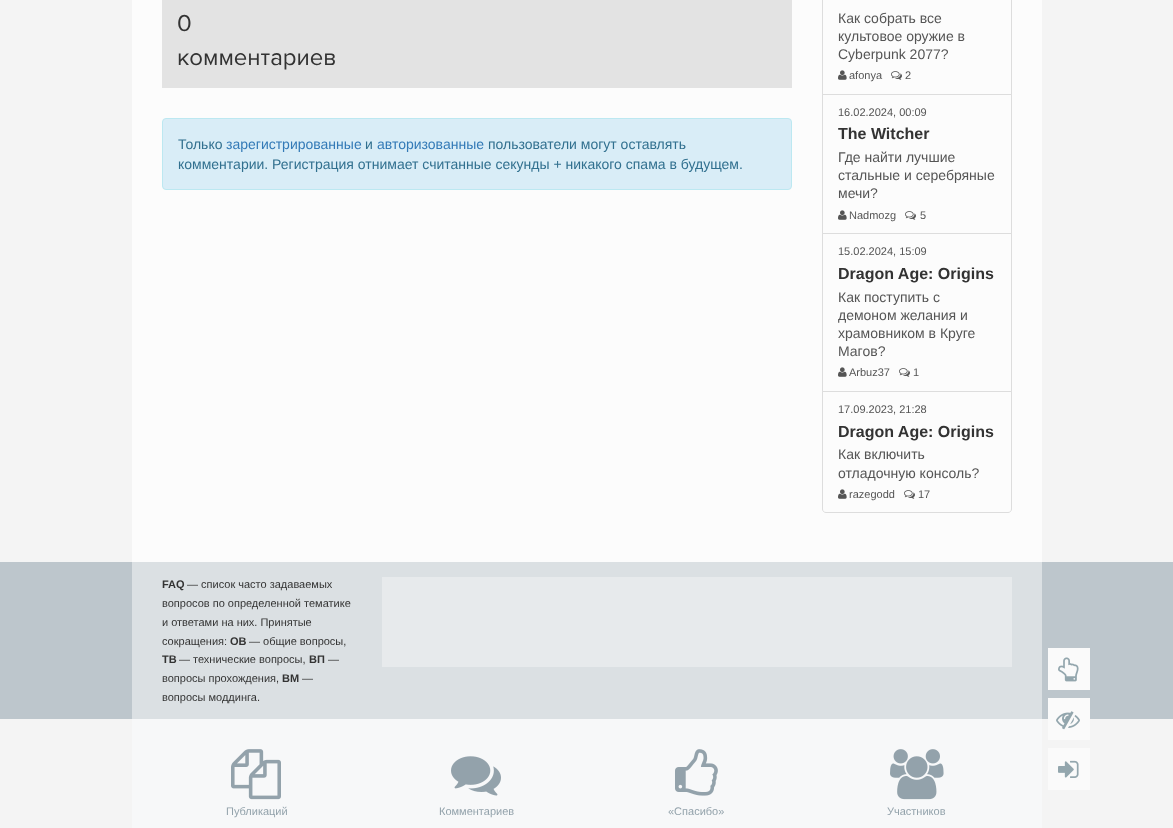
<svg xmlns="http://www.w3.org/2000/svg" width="1173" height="828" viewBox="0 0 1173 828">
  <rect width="100%" height="100%" fill="#f4f4f4"/>
  <path d="M132 0h910v562H132z" fill="#fcfcfc"/>
  <path d="M162 0h630v88H162z" fill="#e3e3e3"/>
  <rect x="162.5" y="118.5" width="629" height="71" rx="3.5" fill="#d9edf7" stroke="#bce8f1"/>
  <path d="M822.5 -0.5h189v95H822.5z" fill="none" stroke="#ddd"/>
  <image x="838" y="70" width="9" height="10" href="img/1.png"/>
  <image x="891" y="71" width="11" height="9" href="img/2.png"/>
  <path d="M822.5 94.5h189v139H822.5z" fill="none" stroke="#ddd"/>
  <image x="838" y="210" width="9" height="10" href="img/1.png"/>
  <image x="905" y="211" width="11" height="9" href="img/2.png"/>
  <path d="M822.5 233.5h189v158H822.5z" fill="none" stroke="#ddd"/>
  <image x="838" y="367" width="9" height="10" href="img/1.png"/>
  <image x="899" y="368" width="11" height="9" href="img/2.png"/>
  <path d="M822.5 391.5H1011.5V509C1011.5 511 1010 512.5 1008 512.5H826C824 512.5 822.5 511 822.5 509Z" fill="none" stroke="#ddd"/>
  <image x="838" y="489" width="9" height="10" href="img/1.png"/>
  <image x="904" y="490" width="11" height="9" href="img/2.png"/>
  <path d="M0 562h1173v157H0z" fill="#bdc6cc"/>
  <path d="M132 562h910v157H132z" fill="#dbe0e3"/>
  <path d="M382 577h630v90H382z" fill="#e7eaec"/>
  <path d="M1048 648h42v42H1048z" fill="#fafafa"/>
  <image x="1058" y="657" width="21" height="25" href="img/3.png"/>
  <path d="M1048 698h42v42H1048z" fill="#fafafa"/>
  <image x="1056" y="711" width="24" height="19" href="img/4.png"/>
  <path d="M1048 748h42v42H1048z" fill="#fafafa"/>
  <image x="1058" y="760" width="21" height="18" href="img/5.png"/>
  <path d="M132 719h910v109H132z" fill="#f7f8f9"/>
  <image x="231" y="749" width="50" height="51" href="img/6.png"/>
  <image x="451" y="756" width="50" height="40" href="img/7.png"/>
  <image x="675" y="749" width="43" height="47" href="img/8.png"/>
  <image x="890" y="749" width="54" height="51" href="img/9.png"/>
  <g font-family="Proxima Nova" font-size="24" fill="#333">
    <text x="177" y="31">0</text>
    <text x="177" y="65">комментариев</text>
  </g>
  <text x="178" y="149" font-family="Liberation Sans" font-size="14" fill="#31708f">Только</text>
  <text x="226" y="149" font-family="Liberation Sans" font-size="14" fill="#337ab7">зарегистрированные</text>
  <text x="365" y="149" font-family="Liberation Sans" font-size="14" fill="#31708f">и</text>
  <text x="377" y="149" font-family="Liberation Sans" font-size="14" fill="#337ab7">авторизованные</text>
  <g font-family="Liberation Sans" font-size="14" fill="#31708f">
    <text x="488" y="149">пользователи могут оставлять</text>
    <text x="178" y="169">комментарии. Регистрация отнимает считанные секунды + никакого спама в будущем.</text>
  </g>
  <g font-family="Liberation Sans" font-size="14" fill="#555">
    <text x="838" y="23">Как собрать все</text>
    <text x="838" y="41">культовое оружие в</text>
    <text x="838" y="59">Cyberpunk 2077?</text>
  </g>
  <g font-family="Liberation Sans" font-size="11" fill="#555">
    <text x="849" y="79">afonya</text>
    <text x="905" y="79">2</text>
    <text x="838" y="116">16.02.2024, 00:09</text>
  </g>
  <text x="838" y="139" font-family="Liberation Sans" font-size="16" font-weight="bold" fill="#333">The Witcher</text>
  <g font-family="Liberation Sans" font-size="14" fill="#555">
    <text x="838" y="162">Где найти лучшие</text>
    <text x="838" y="180">стальные и серебряные</text>
    <text x="838" y="198">мечи?</text>
  </g>
  <g font-family="Liberation Sans" font-size="11" fill="#555">
    <text x="849" y="219">Nadmozg</text>
    <text x="920" y="219">5</text>
    <text x="838" y="255">15.02.2024, 15:09</text>
  </g>
  <text x="838" y="279" font-family="Liberation Sans" font-size="16" font-weight="bold" fill="#333">Dragon Age: Origins</text>
  <g font-family="Liberation Sans" font-size="14" fill="#555">
    <text x="838" y="302">Как поступить с</text>
    <text x="838" y="320">демоном желания и</text>
    <text x="838" y="338">храмовником в Круге</text>
    <text x="838" y="356">Магов?</text>
  </g>
  <g font-family="Liberation Sans" font-size="11" fill="#555">
    <text x="849" y="376">Arbuz37</text>
    <text x="913" y="376">1</text>
    <text x="838" y="413">17.09.2023, 21:28</text>
  </g>
  <text x="838" y="437" font-family="Liberation Sans" font-size="16" font-weight="bold" fill="#333">Dragon Age: Origins</text>
  <g font-family="Liberation Sans" font-size="14" fill="#555">
    <text x="838" y="459">Как включить</text>
    <text x="838" y="478">отладочную консоль?</text>
  </g>
  <g font-family="Liberation Sans" font-size="11" fill="#555">
    <text x="849" y="498">razegodd</text>
    <text x="918" y="498">17</text>
  </g>
  <text x="162" y="588" font-family="Liberation Sans" font-size="11" font-weight="bold" fill="#333">FAQ</text>
  <g font-family="Liberation Sans" font-size="11" fill="#333">
    <text x="187" y="588">— список часто задаваемых</text>
    <text x="162" y="607">вопросов по определенной тематике</text>
    <text x="162" y="626">и ответами на них. Принятые</text>
    <text x="162" y="645">сокращения:</text>
  </g>
  <text x="230" y="645" font-family="Liberation Sans" font-size="11" font-weight="bold" fill="#333">ОВ</text>
  <text x="249" y="645" font-family="Liberation Sans" font-size="11" fill="#333">— общие вопросы,</text>
  <text x="162" y="663" font-family="Liberation Sans" font-size="11" font-weight="bold" fill="#333">ТВ</text>
  <text x="179" y="663" font-family="Liberation Sans" font-size="11" fill="#333">— технические вопросы,</text>
  <text x="309" y="663" font-family="Liberation Sans" font-size="11" font-weight="bold" fill="#333">ВП</text>
  <g font-family="Liberation Sans" font-size="11" fill="#333">
    <text x="328" y="663">—</text>
    <text x="162" y="682">вопросы прохождения,</text>
  </g>
  <text x="282" y="682" font-family="Liberation Sans" font-size="11" font-weight="bold" fill="#333">ВМ</text>
  <g font-family="Liberation Sans" font-size="11" fill="#333">
    <text x="302" y="682">—</text>
    <text x="162" y="701">вопросы моддинга.</text>
  </g>
  <g font-family="Liberation Sans" font-size="11" fill="#93a2ab">
    <text x="226" y="815">Публикаций</text>
    <text x="439" y="815">Комментариев</text>
    <text x="668" y="815">«Спасибо»</text>
    <text x="887" y="815">Участников</text>
  </g>
</svg>
